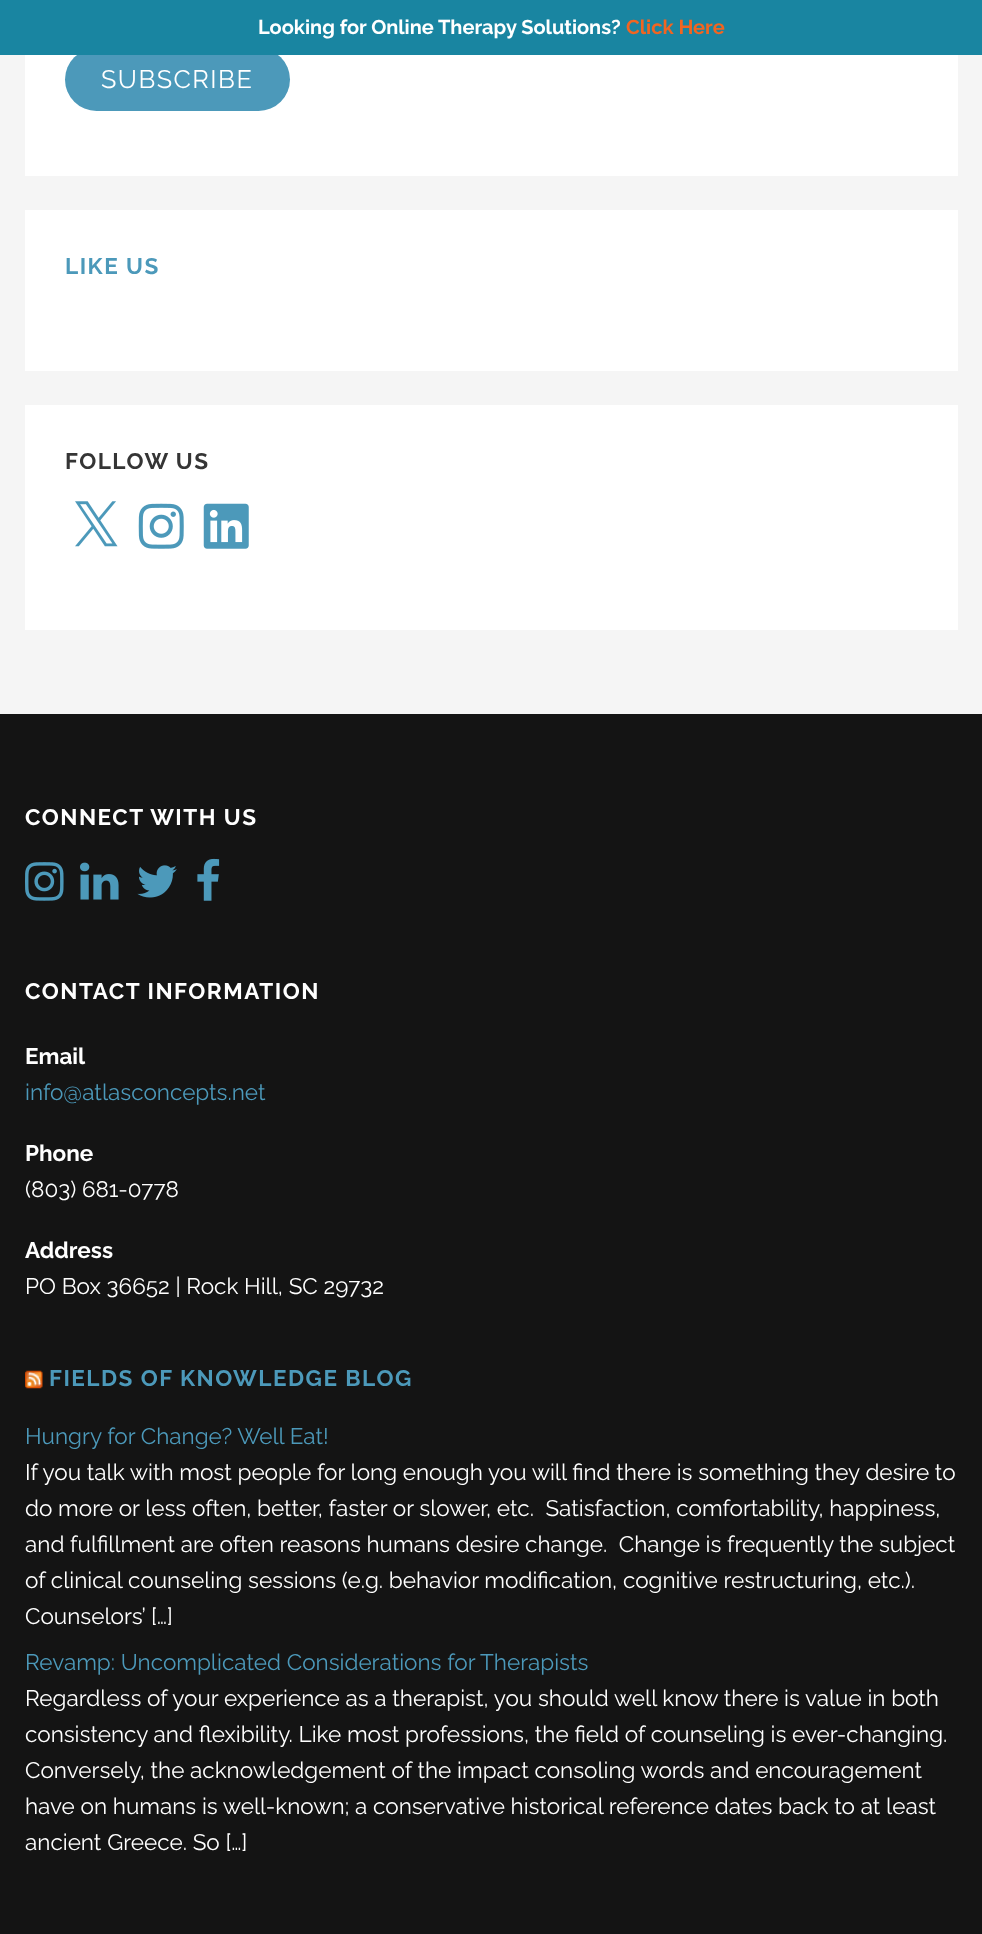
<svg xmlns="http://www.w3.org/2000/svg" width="982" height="1934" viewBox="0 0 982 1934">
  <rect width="100%" height="100%" fill="#f5f5f5"/>
  <path d="M25 55h933v121H25z" fill="#fff"/>
  <rect x="65" y="48" width="225" height="63" rx="31.5" fill="#4c99ba"/>
  <path d="M0 0h982v55H0z" fill="#1985a1"/>
  <path d="M25 210h933v161H25z" fill="#fff"/>
  <path d="M25 405h933v225H25z" fill="#fff"/>
  <image x="75" y="501" width="43" height="46" href="img/1.png"/>
  <image x="138" y="503" width="46" height="46" href="img/2.png"/>
  <image x="203" y="503" width="46" height="46" href="img/3.png"/>
  <path d="M0 714h982v1220H0z" fill="#141414"/>
  <image x="25" y="862" width="39" height="39" href="img/4.png"/>
  <image x="80" y="862" width="39" height="38" href="img/5.png"/>
  <image x="137" y="865" width="40" height="33" href="img/6.png"/>
  <image x="197" y="858" width="23" height="43" href="img/7.png"/>
  <image x="25" y="1370" width="18" height="19" href="img/8.png"/>
  <text x="258" y="34" font-family="Raleway" font-size="20" font-weight="bold" fill="#fff">Looking for Online Therapy Solutions?</text>
  <text x="626" y="34" font-family="Raleway" font-size="20" font-weight="bold" fill="#f16521">Click Here</text>
  <text x="101" y="88" font-family="Raleway" font-size="25.25" letter-spacing="1.5" fill="#fff">SUBSCRIBE</text>
  <text x="65" y="274" font-family="Raleway" font-size="22.5" font-weight="bold" letter-spacing="1.5" fill="#4c99ba">LIKE US</text>
  <text x="65" y="469" font-family="Raleway" font-size="22.5" font-weight="bold" letter-spacing="1.5" fill="#353535">FOLLOW US</text>
  <g font-family="Raleway" font-size="22.5" font-weight="bold" letter-spacing="1.5" fill="#fff">
    <text x="25" y="825">CONNECT WITH US</text>
    <text x="25" y="999">CONTACT INFORMATION</text>
  </g>
  <text x="25" y="1064" font-family="Raleway" font-size="22.5" font-weight="bold" fill="#fff">Email</text>
  <text x="25" y="1100" font-family="Raleway" font-size="22.5" fill="#4c99ba">info@atlasconcepts.net</text>
  <text x="25" y="1161" font-family="Raleway" font-size="22.5" font-weight="bold" fill="#fff">Phone</text>
  <text x="25" y="1197" font-family="Raleway" font-size="22.5" fill="#fff">(803) 681-0778</text>
  <text x="25" y="1258" font-family="Raleway" font-size="22.5" font-weight="bold" fill="#fff">Address</text>
  <text x="25" y="1294" font-family="Raleway" font-size="22.5" fill="#fff">PO Box 36652 | Rock Hill, SC 29732</text>
  <text x="49" y="1386" font-family="Raleway" font-size="22.5" font-weight="bold" letter-spacing="1.5" fill="#4c99ba">FIELDS OF KNOWLEDGE BLOG</text>
  <text x="25" y="1444" font-family="Raleway" font-size="22.5" fill="#4c99ba">Hungry for Change? Well Eat!</text>
  <g font-family="Raleway" font-size="22.5" fill="#fff">
    <text x="25" y="1480">If you talk with most people for long enough you will find there is something they desire to</text>
    <text x="25" y="1516" xml:space="preserve">do more or less often, better, faster or slower, etc.  Satisfaction, comfortability, happiness,</text>
    <text x="25" y="1552" xml:space="preserve">and fulfillment are often reasons humans desire change.  Change is frequently the subject</text>
    <text x="25" y="1588">of clinical counseling sessions (e.g. behavior modification, cognitive restructuring, etc.).</text>
    <text x="25" y="1624">Counselors’ […]</text>
  </g>
  <text x="25" y="1670" font-family="Raleway" font-size="22.5" fill="#4c99ba">Revamp: Uncomplicated Considerations for Therapists</text>
  <g font-family="Raleway" font-size="22.5" fill="#fff">
    <text x="25" y="1706">Regardless of your experience as a therapist, you should well know there is value in both</text>
    <text x="25" y="1742">consistency and flexibility. Like most professions, the field of counseling is ever-changing.</text>
    <text x="25" y="1778">Conversely, the acknowledgement of the impact consoling words and encouragement</text>
    <text x="25" y="1814">have on humans is well-known; a conservative historical reference dates back to at least</text>
    <text x="25" y="1850">ancient Greece. So […]</text>
  </g>
</svg>
